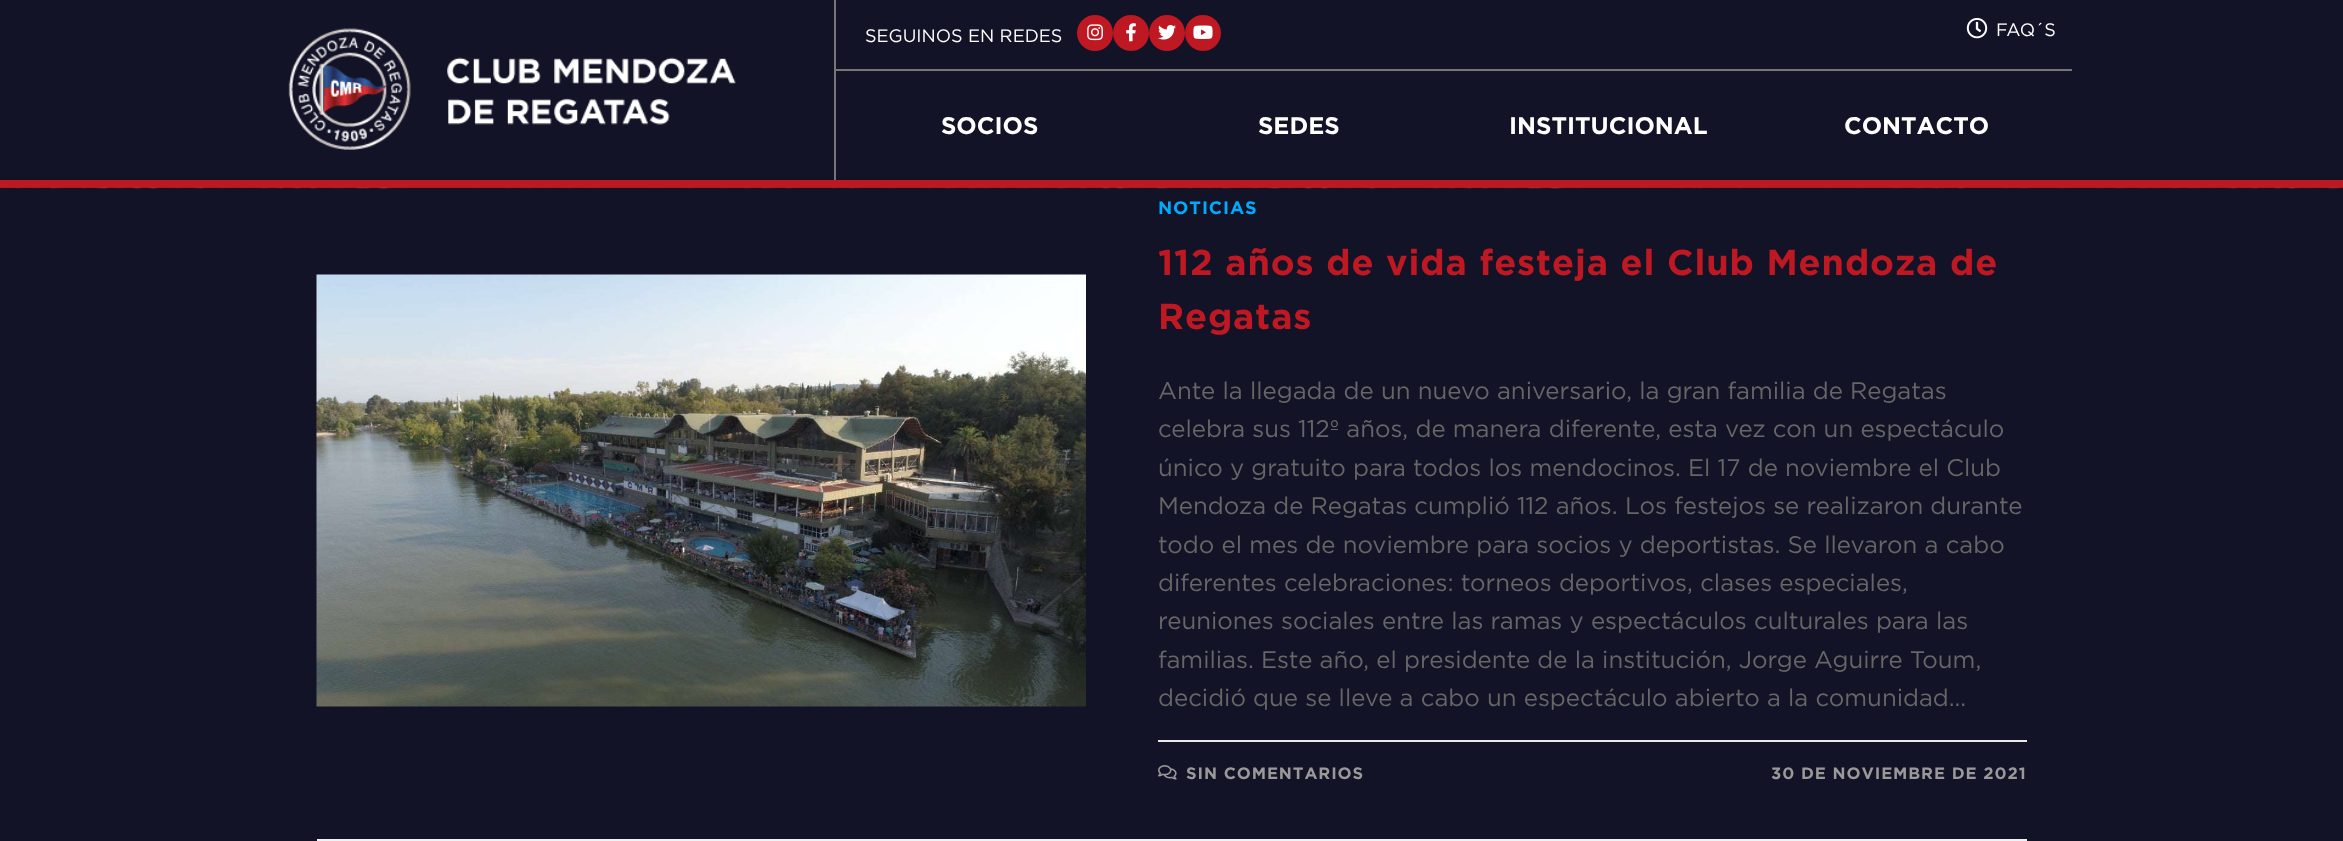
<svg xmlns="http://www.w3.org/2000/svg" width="2343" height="841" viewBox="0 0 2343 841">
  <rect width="100%" height="100%" fill="#121326"/>
  <path d="M0 180h2343v8H0z" fill="#be1823"/>
  <image x="288" y="28" width="448" height="122" href="img/1.png"/>
  <path d="M834 0h2v180H834z" fill="#767676"/>
  <path d="M836 69h1236v2H836z" fill="#767676"/>
  <circle cx="1095" cy="33" r="18" fill="#be1823"/>
  <image x="1087" y="24" width="16" height="17" href="img/2.png"/>
  <circle cx="1131" cy="33" r="18" fill="#be1823"/>
  <image x="1126" y="23" width="10" height="19" href="img/3.png"/>
  <circle cx="1167" cy="33" r="18" fill="#be1823"/>
  <image x="1158" y="24" width="18" height="16" href="img/4.png"/>
  <circle cx="1203" cy="33" r="18" fill="#be1823"/>
  <image x="1193" y="25" width="20" height="14" href="img/5.png"/>
  <image x="1966" y="18" width="22" height="21" href="img/6.png"/>
  <image x="0" y="187" width="2343" height="2" href="img/7.png"/>
  <path d="M317 839h1710v2H317z" fill="#f1f1f1"/>
  <image x="316" y="274" width="770" height="433" href="img/8.png"/>
  <path d="M1158 740h869v2H1158z" fill="#e9e9e9"/>
  <image x="1158" y="765" width="19" height="15" href="img/9.png"/>
  <g font-family="Gotham" font-size="18" fill="#fff">
    <text x="865" y="42">SEGUINOS EN REDES</text>
    <text x="1996" y="36">FAQ´S</text>
  </g>
  <g font-family="Gotham" font-size="24" font-weight="bold" fill="#fff">
    <text x="941" y="134">SOCIOS</text>
    <text x="1258" y="134">SEDES</text>
    <text x="1509" y="134">INSTITUCIONAL</text>
    <text x="1844" y="134">CONTACTO</text>
  </g>
  <text x="1158" y="214" font-family="Gotham" font-size="18" font-weight="bold" letter-spacing="0.9" fill="#0af">NOTICIAS</text>
  <g font-family="Gotham" font-size="36" font-weight="bold" letter-spacing="0.9" fill="#be1823">
    <text x="1158" y="275">112 años de vida festeja el Club Mendoza de</text>
    <text x="1158" y="329">Regatas</text>
  </g>
  <g font-family="Gotham" font-size="24" fill="#666">
    <text x="1158" y="399">Ante la llegada de un nuevo aniversario, la gran familia de Regatas</text>
    <text x="1158" y="437">celebra sus 112º años, de manera diferente, esta vez con un espectáculo</text>
    <text x="1158" y="476">único y gratuito para todos los mendocinos. El 17 de noviembre el Club</text>
    <text x="1158" y="514">Mendoza de Regatas cumplió 112 años. Los festejos se realizaron durante</text>
    <text x="1158" y="553">todo el mes de noviembre para socios y deportistas. Se llevaron a cabo</text>
    <text x="1158" y="591">diferentes celebraciones: torneos deportivos, clases especiales,</text>
    <text x="1158" y="629">reuniones sociales entre las ramas y espectáculos culturales para las</text>
    <text x="1158" y="668">familias. Este año, el presidente de la institución, Jorge Aguirre Toum,</text>
    <text x="1158" y="706">decidió que se lleve a cabo un espectáculo abierto a la comunidad…</text>
  </g>
  <g font-family="Gotham" font-size="16.5" font-weight="bold" letter-spacing="0.9" fill="#999">
    <text x="1186" y="779">SIN COMENTARIOS</text>
    <text x="1771" y="779">30 DE NOVIEMBRE DE 2021</text>
  </g>
</svg>
